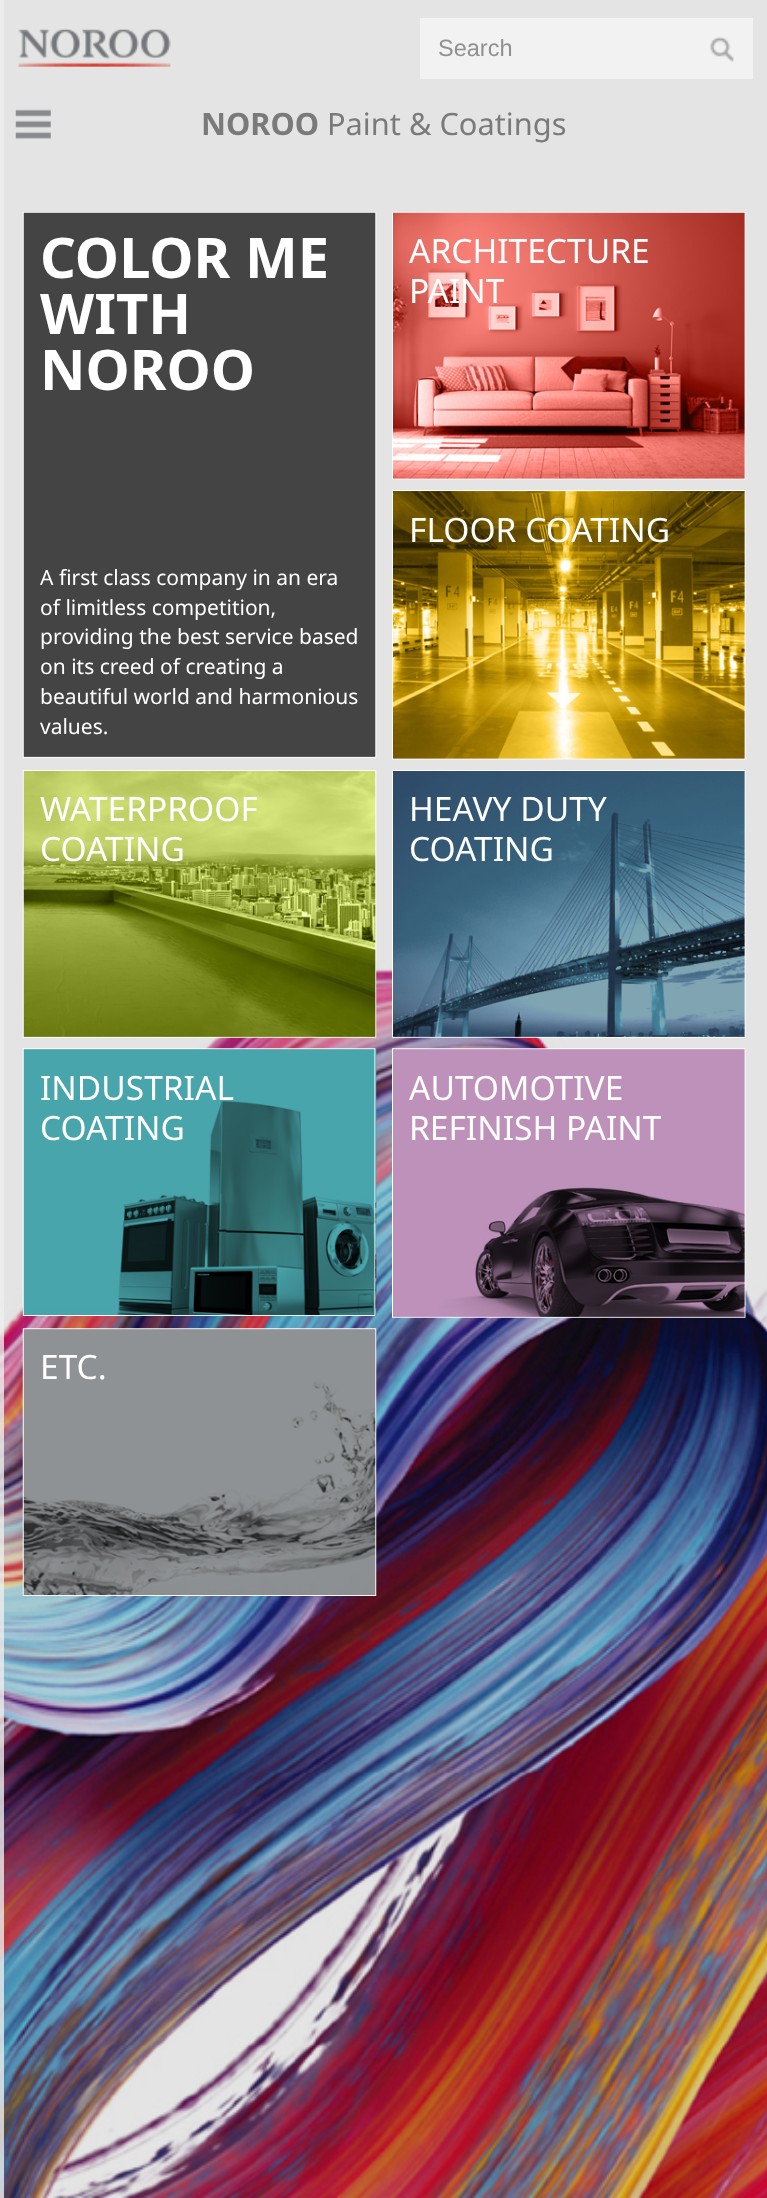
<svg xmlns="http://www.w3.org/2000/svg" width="767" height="2198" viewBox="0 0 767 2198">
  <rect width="100%" height="100%" fill="#fff"/>
  <image x="0" y="0" width="767" height="2198" href="img/1.png"/>
  <image x="18" y="29" width="153" height="38" href="img/2.png"/>
  <path d="M420 18h333v61H420z" fill="#f2f2f2"/>
  <image x="710" y="36" width="24" height="26" href="img/3.png"/>
  <image x="15" y="109" width="36" height="30" href="img/4.png"/>
  <path d="M0 0h4v2198H0z" fill="#edededcc"/>
  <image x="22" y="212" width="355" height="546" href="img/5.png"/>
  <image x="392" y="212" width="354" height="268" href="img/6.png"/>
  <image x="392" y="490" width="354" height="270" href="img/7.png"/>
  <image x="22" y="770" width="355" height="268" href="img/8.png"/>
  <image x="392" y="770" width="354" height="268" href="img/9.png"/>
  <image x="22" y="1048" width="355" height="268" href="img/10.png"/>
  <image x="392" y="1048" width="354" height="270" href="img/11.png"/>
  <image x="22" y="1328" width="355" height="268" href="img/12.png"/>
  <text x="438" y="56" font-family="Liberation Sans" font-size="23.5" fill="#919191">Search</text>
  <text x="201" y="135" font-family="Noto Sans" font-size="30.75" font-weight="bold" fill="#7a7a7a">NOROO</text>
  <text x="327" y="135" font-family="Noto Sans" font-size="30.75" fill="#7a7a7a">Paint &amp; Coatings</text>
  <g font-family="Noto Sans" font-size="56" font-weight="bold" fill="#fff">
    <text x="40" y="278">COLOR ME</text>
    <text x="40" y="334">WITH</text>
    <text x="40" y="390">NOROO</text>
  </g>
  <g font-family="Noto Sans" font-size="21" fill="#fff">
    <text x="40" y="585">A first class company in an era</text>
    <text x="40" y="615">of limitless competition,</text>
    <text x="40" y="644">providing the best service based</text>
    <text x="40" y="674">on its creed of creating a</text>
    <text x="40" y="704">beautiful world and harmonious</text>
    <text x="40" y="734">values.</text>
  </g>
  <g font-family="Noto Sans" font-size="33.5" fill="#fff">
    <text x="409" y="263">ARCHITECTURE</text>
    <text x="409" y="303">PAINT</text>
    <text x="409" y="542">FLOOR COATING</text>
    <text x="40" y="821">WATERPROOF</text>
    <text x="40" y="861">COATING</text>
    <text x="409" y="821">HEAVY DUTY</text>
    <text x="409" y="861">COATING</text>
    <text x="40" y="1100">INDUSTRIAL</text>
    <text x="40" y="1140">COATING</text>
    <text x="409" y="1100">AUTOMOTIVE</text>
    <text x="409" y="1140">REFINISH PAINT</text>
    <text x="40" y="1379">ETC.</text>
  </g>
</svg>
